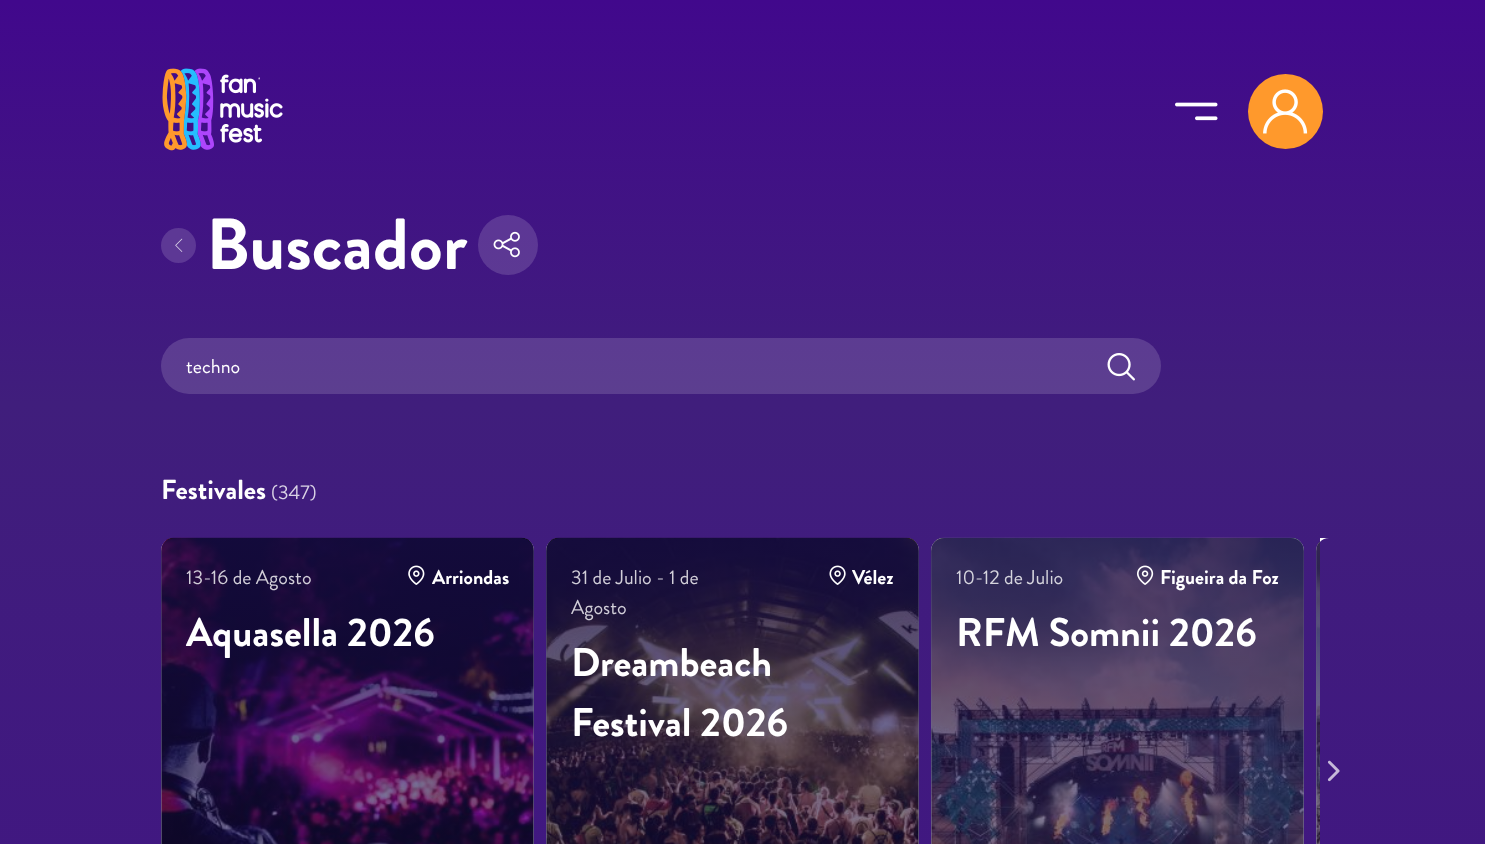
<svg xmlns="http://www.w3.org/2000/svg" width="1485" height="844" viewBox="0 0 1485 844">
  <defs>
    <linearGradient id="g1" gradientUnits="userSpaceOnUse" x1="742" y1="0" x2="743" y2="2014"><stop offset="0" stop-color="#41088c"/><stop offset="0.2" stop-color="#401e7c"/><stop offset="1" stop-color="#41088c"/></linearGradient>
    <clipPath id="clip1"><rect x="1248" y="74" width="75" height="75" rx="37.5"/></clipPath>
    <linearGradient id="g2" gradientUnits="userSpaceOnUse" x1="348" y1="538" x2="348" y2="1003"><stop offset="0" stop-color="#180d4a" stop-opacity="0.8"/><stop offset="1" stop-color="#180d4a" stop-opacity="0.4"/></linearGradient>
    <linearGradient id="g3" gradientUnits="userSpaceOnUse" x1="733" y1="538" x2="733" y2="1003"><stop offset="0" stop-color="#180d4a" stop-opacity="0.8"/><stop offset="1" stop-color="#180d4a" stop-opacity="0.4"/></linearGradient>
    <linearGradient id="g4" gradientUnits="userSpaceOnUse" x1="1118" y1="538" x2="1118" y2="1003"><stop offset="0" stop-color="#180d4a" stop-opacity="0.8"/><stop offset="1" stop-color="#180d4a" stop-opacity="0.4"/></linearGradient>
    <clipPath id="clip2"><rect x="1316" y="538" width="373" height="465" rx="13"/></clipPath>
    <linearGradient id="g5" gradientUnits="userSpaceOnUse" x1="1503" y1="538" x2="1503" y2="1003"><stop offset="0" stop-color="#180d4a" stop-opacity="0.8"/><stop offset="1" stop-color="#180d4a" stop-opacity="0.4"/></linearGradient>
  </defs>
  <rect width="100%" height="100%" fill="#fff"/>
  <path d="M0 0h1485v844H0z" fill="url(#g1)"/>
  <image x="194" y="68" width="20" height="82" href="img/3.png"/>
  <image x="180" y="68" width="21" height="82" href="img/2.png"/>
  <image x="162" y="68" width="25" height="83" href="img/1.png"/>
  <image x="220" y="74" width="9" height="20" href="img/4.png"/>
  <image x="258" y="77" width="2" height="3" href="img/5.png"/>
  <image x="228" y="78" width="15" height="16" href="img/6.png"/>
  <image x="243" y="78" width="13" height="16" href="img/7.png"/>
  <image x="258" y="77" width="2" height="3" href="img/8.png"/>
  <image x="220" y="103" width="21" height="15" href="img/9.png"/>
  <image x="241" y="103" width="13" height="15" href="img/10.png"/>
  <image x="254" y="103" width="10" height="15" href="img/11.png"/>
  <image x="265" y="98" width="4" height="20" href="img/12.png"/>
  <image x="269" y="103" width="14" height="15" href="img/13.png"/>
  <image x="220" y="124" width="9" height="19" href="img/14.png"/>
  <image x="228" y="127" width="15" height="16" href="img/15.png"/>
  <image x="243" y="127" width="11" height="16" href="img/16.png"/>
  <image x="253" y="124" width="9" height="19" href="img/17.png"/>
  <image x="1175" y="102" width="43" height="19" href="img/18.png"/>
  <g clip-path="url(#clip1)">
    <rect x="1248" y="79" width="75" height="75" rx="37.5" fill="#00000040" filter="blur(2.5px)"/>
  </g>
  <circle cx="1285.5" cy="111.5" r="37.5" fill="#ff992c"/>
  <image x="1263" y="89" width="45" height="45" href="img/19.png"/>
  <circle cx="178.5" cy="245.5" r="17.5" fill="#5d3895"/>
  <image x="175" y="238" width="8" height="14" href="img/20.png"/>
  <circle cx="508" cy="245" r="30" fill="#ffffff26"/>
  <image x="493" y="231" width="27" height="27" href="img/21.png"/>
  <rect x="161" y="338" width="1000" height="56" rx="28" fill="#ffffff26"/>
  <image x="1107" y="353" width="28" height="28" href="img/22.png"/>
  <rect x="161" y="538" width="373" height="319" rx="13" fill="#fff"/>
  <image x="161" y="537" width="373" height="307" href="img/23.png"/>
  <rect x="161" y="538" width="373" height="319" rx="13" fill="url(#g2)"/>
  <image x="408" y="565" width="17" height="20" href="img/24.png"/>
  <rect x="546" y="538" width="373" height="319" rx="13" fill="#fff"/>
  <image x="546" y="537" width="373" height="307" href="img/25.png"/>
  <rect x="546" y="538" width="373" height="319" rx="13" fill="url(#g3)"/>
  <image x="829" y="565" width="17" height="20" href="img/26.png"/>
  <rect x="931" y="538" width="373" height="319" rx="13" fill="#fff"/>
  <image x="931" y="537" width="373" height="307" href="img/27.png"/>
  <rect x="931" y="538" width="373" height="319" rx="13" fill="url(#g4)"/>
  <image x="1137" y="565" width="17" height="20" href="img/28.png"/>
  <path d="M1329 538H1320V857H1329C1322 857 1316 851 1316 844V551C1316 544 1322 538 1329 538Z" fill="#fff"/>
  <image x="1316" y="542" width="4" height="302" href="img/29.png"/>
  <g clip-path="url(#clip2)">
    <path d="M1316 538h4v306H1316z" fill="url(#g5)"/>
  </g>
  <image x="1327" y="760" width="13" height="22" href="img/30.png"/>
  <text x="206" y="269" font-family="Brandon Grotesque" font-size="72" font-weight="bold" fill="#fff">Buscador</text>
  <text x="186" y="373" font-family="Brandon Grotesque" font-size="20" fill="#fff">techno</text>
  <text x="161" y="499" font-family="Brandon Grotesque" font-size="27.5" font-weight="bold" fill="#fff">Festivales</text>
  <text x="271" y="499" font-family="Brandon Grotesque" font-size="20" fill="#d9d2e5">(347)</text>
  <text x="186" y="584" font-family="Brandon Grotesque" font-size="20" fill="#d1ced8">13-16 de Agosto</text>
  <text x="432" y="584" font-family="Brandon Grotesque" font-size="20" font-weight="bold" fill="#fff">Arriondas</text>
  <text x="186" y="646" font-family="Brandon Grotesque" font-size="40" font-weight="bold" fill="#fff">Aquasella 2026</text>
  <g font-family="Brandon Grotesque" font-size="20" fill="#d1ced8">
    <text x="571" y="584">31 de Julio - 1 de</text>
    <text x="571" y="614">Agosto</text>
  </g>
  <text x="852" y="584" font-family="Brandon Grotesque" font-size="20" font-weight="bold" fill="#fff">Vélez</text>
  <g font-family="Brandon Grotesque" font-size="40" font-weight="bold" fill="#fff">
    <text x="571" y="676">Dreambeach</text>
    <text x="571" y="736">Festival 2026</text>
  </g>
  <text x="956" y="584" font-family="Brandon Grotesque" font-size="20" fill="#d5d4dd">10-12 de Julio</text>
  <text x="1160" y="584" font-family="Brandon Grotesque" font-size="20" font-weight="bold" fill="#fff">Figueira da Foz</text>
  <text x="956" y="646" font-family="Brandon Grotesque" font-size="40" font-weight="bold" fill="#fff">RFM Somnii 2026</text>
</svg>
